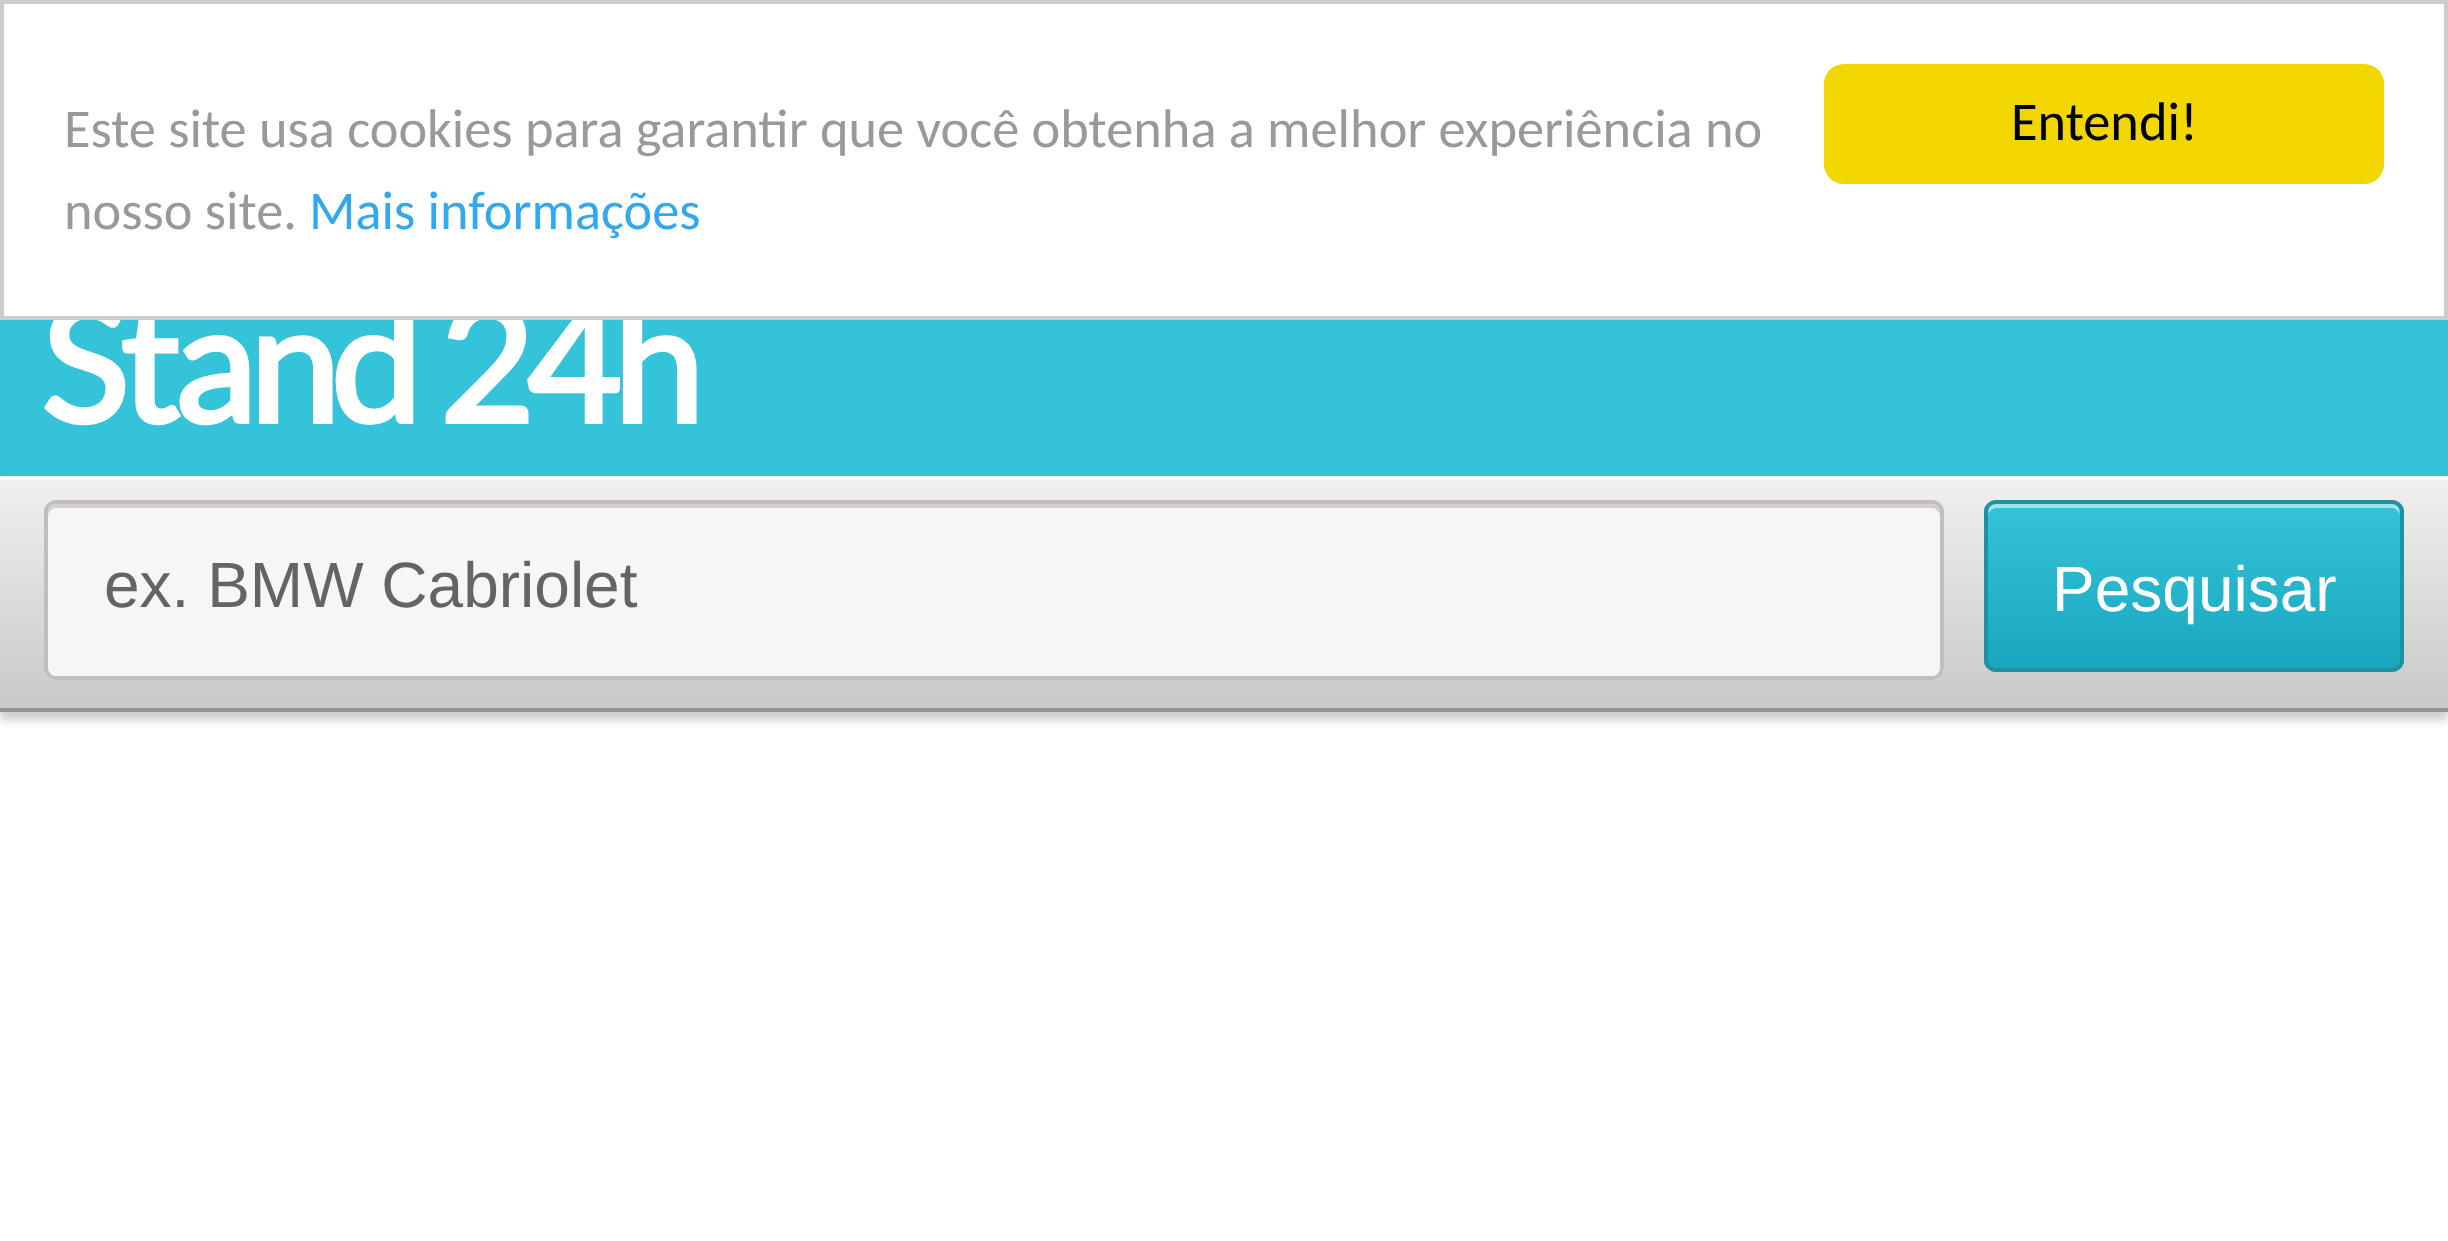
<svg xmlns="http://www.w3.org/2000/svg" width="2448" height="1241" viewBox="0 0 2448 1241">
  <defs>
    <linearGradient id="g1" gradientUnits="userSpaceOnUse" x1="1224" y1="476" x2="1224" y2="708"><stop offset="0" stop-color="#f0f0f0"/><stop offset="1" stop-color="#c9c9c9"/></linearGradient>
    <clipPath id="clip1"><rect x="1984" y="500" width="420" height="172" rx="12"/></clipPath>
    <linearGradient id="g2" gradientUnits="userSpaceOnUse" x1="2194" y1="504" x2="2194" y2="668"><stop offset="0" stop-color="#35c3d9"/><stop offset="1" stop-color="#18a7be"/></linearGradient>
  </defs>
  <rect width="100%" height="100%" fill="#fff"/>
  <path d="M0 320h2448v156H0z" fill="#35c3d9"/>
  <path d="M0 484h2448v236H0z" fill="#00000033" filter="blur(4px)"/>
  <path d="M0 480h2448v228H0z" fill="url(#g1)"/>
  <path d="M0 477h2448v3H0z" fill="#fff"/>
  <path d="M0 708h2448v4H0z" fill="#989393"/>
  <rect x="44" y="500" width="1900" height="180" rx="12" fill="#f6f6f6"/>
  <path d="M56 508H1932C1936 508 1940 512 1940 516V512C1940 508 1936 504 1932 504H56C52 504 48 508 48 512V516C48 512 52 508 56 508Z" fill="#d6cece"/>
  <rect x="46" y="502" width="1896" height="176" rx="10" fill="none" stroke="#bfbfbf" stroke-width="4"/>
  <g clip-path="url(#clip1)">
    <path d="M1984 504h420v164H1984z" fill="url(#g2)"/>
  </g>
  <path d="M1996 508H2392C2396 508 2400 512 2400 516C2400 510 2399 504 2392 504H1994C1988 505 1988 511 1988 516C1988 512 1992 508 1996 508Z" fill="#a0e3ed"/>
  <rect x="1986" y="502" width="416" height="168" rx="10" fill="none" stroke="#1f91a3" stroke-width="4"/>
  <text x="40" y="424" font-family="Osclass" font-size="163" font-weight="bold" letter-spacing="-7.6" fill="#fff">Stand 24h</text>
  <path d="M2 2h2444v316H2z" fill="none" stroke="#ccc" stroke-width="4"/>
  <text x="309" y="229" font-family="Carlito" font-size="54.4" fill="#31a8f0">Mais informações</text>
  <g font-family="Carlito" font-size="54.4" fill="#999">
    <text x="64" y="229">nosso site.</text>
    <text x="64" y="147">Este site usa cookies para garantir que você obtenha a melhor experiência no</text>
  </g>
  <rect x="1824" y="64" width="560" height="120" rx="20" fill="#f1d600"/>
  <text x="2011" y="140" font-family="Carlito" font-size="54.4" fill="#000">Entendi!</text>
  <text x="104" y="607" font-family="Liberation Sans" font-size="64" fill="#646464">ex. BMW Cabriolet</text>
  <text x="2052" y="611" font-family="Liberation Sans" font-size="64" fill="#fff">Pesquisar</text>
</svg>
